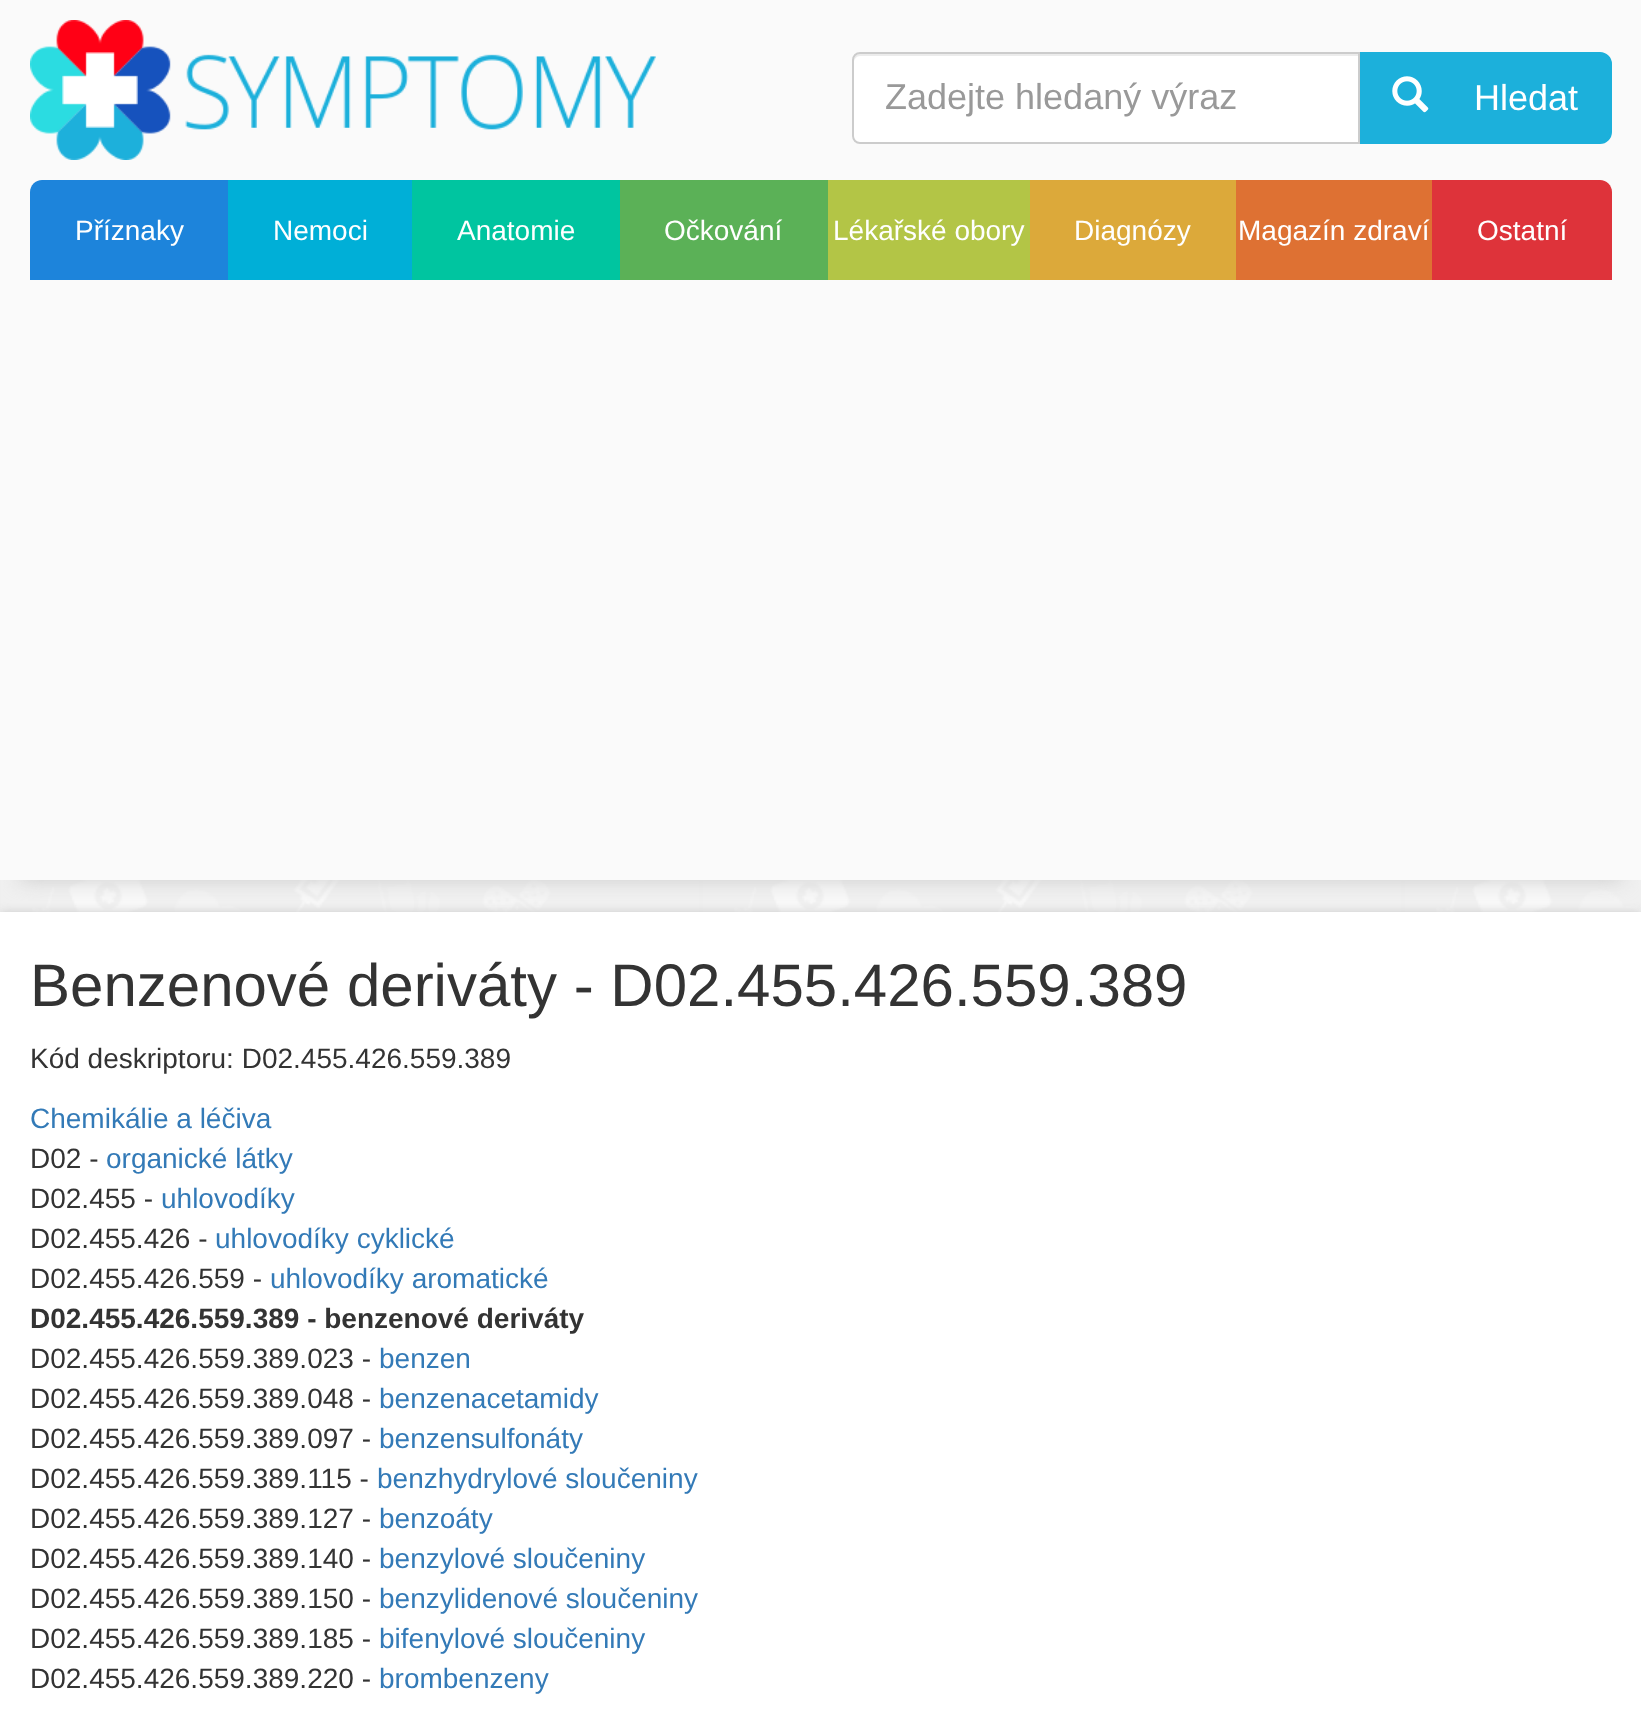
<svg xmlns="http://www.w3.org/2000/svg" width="1641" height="1713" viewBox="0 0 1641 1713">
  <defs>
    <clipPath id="clip1"><path d="M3 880h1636v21H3z"/></clipPath>
  </defs>
  <rect width="100%" height="100%" fill="#fff"/>
  <image x="0" y="0" width="1641" height="912" href="img/1.png"/>
  <g clip-path="url(#clip1)">
    <path d="M20 40h1602v840H20z" fill="#ccc" filter="blur(10px)"/>
  </g>
  <path d="M0 0h1641v880H0z" fill="#fafafaf2"/>
  <image x="30" y="20" width="626" height="140" href="img/2.png"/>
  <path d="M1359 53H1600C1606 53 1611 58 1611 64V132C1611 138 1606 143 1600 143H1359Z" fill="#1cb0db" stroke="#1cb0db" stroke-width="2"/>
  <path d="M860 52H1360V144H860C855.5 144 852 140.5 852 136V60C852 55.5 855.5 52 860 52Z" fill="#fff"/>
  <path d="M860 56H1358V54H860C855 54 854 58 854 62C854 59 857 56 860 56Z" fill="#ececec"/>
  <path d="M860 53H1359V143H860C856 143 853 140 853 136V60C853 56 856 53 860 53Z" fill="none" stroke="#ccc" stroke-width="2"/>
  <image x="1392" y="76" width="37" height="37" href="img/3.png"/>
  <path d="M42 180H228V280H30V192C30 185.5 35.5 180 42 180Z" fill="#1d84db"/>
  <path d="M228 180h184v100H228z" fill="#00afd7"/>
  <path d="M412 180h208v100H412z" fill="#00c5a0"/>
  <path d="M620 180h208v100H620z" fill="#5bb157"/>
  <path d="M828 180h202v100H828z" fill="#b3c546"/>
  <path d="M1030 180h206v100H1030z" fill="#dca93a"/>
  <path d="M1236 180h196v100H1236z" fill="#de7133"/>
  <path d="M1432 180H1600C1606.5 180 1612 185.5 1612 192V280H1432Z" fill="#de333a"/>
  <path d="M0 912h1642v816H0z" fill="#ccc" filter="blur(5px)"/>
  <path d="M0 912h1641v801H0z" fill="#fff"/>
  <text x="885" y="109" font-family="Liberation Sans" font-size="36" fill="#999">Zadejte hledaný výraz</text>
  <text x="1474" y="110" font-family="Liberation Sans" font-size="36" fill="#fff">Hledat</text>
  <g font-family="Liberation Sans" font-size="28" fill="#fff">
    <text x="75" y="240">Příznaky</text>
    <text x="273" y="240">Nemoci</text>
    <text x="457" y="240">Anatomie</text>
    <text x="664" y="240">Očkování</text>
    <text x="833" y="240">Lékařské obory</text>
    <text x="1074" y="240">Diagnózy</text>
    <text x="1238" y="240">Magazín zdraví</text>
    <text x="1477" y="240">Ostatní</text>
  </g>
  <text x="30" y="1006" font-family="Liberation Sans" font-size="60" fill="#333">Benzenové deriváty - D02.455.426.559.389</text>
  <text x="30" y="1068" font-family="Liberation Sans" font-size="28" fill="#333">Kód deskriptoru: D02.455.426.559.389</text>
  <text x="30" y="1128" font-family="Liberation Sans" font-size="28" fill="#337ab7">Chemikálie a léčiva</text>
  <text x="30" y="1168" font-family="Liberation Sans" font-size="28" fill="#333">D02 -</text>
  <text x="106" y="1168" font-family="Liberation Sans" font-size="28" fill="#337ab7">organické látky</text>
  <text x="30" y="1208" font-family="Liberation Sans" font-size="28" fill="#333">D02.455 -</text>
  <text x="161" y="1208" font-family="Liberation Sans" font-size="28" fill="#337ab7">uhlovodíky</text>
  <text x="30" y="1248" font-family="Liberation Sans" font-size="28" fill="#333">D02.455.426 -</text>
  <text x="215" y="1248" font-family="Liberation Sans" font-size="28" fill="#337ab7">uhlovodíky cyklické</text>
  <text x="30" y="1288" font-family="Liberation Sans" font-size="28" fill="#333">D02.455.426.559 -</text>
  <text x="270" y="1288" font-family="Liberation Sans" font-size="28" fill="#337ab7">uhlovodíky aromatické</text>
  <text x="30" y="1328" font-family="Liberation Sans" font-size="28" font-weight="bold" fill="#333">D02.455.426.559.389 - benzenové deriváty</text>
  <text x="30" y="1368" font-family="Liberation Sans" font-size="28" fill="#333">D02.455.426.559.389.023 -</text>
  <text x="379" y="1368" font-family="Liberation Sans" font-size="28" fill="#337ab7">benzen</text>
  <text x="30" y="1408" font-family="Liberation Sans" font-size="28" fill="#333">D02.455.426.559.389.048 -</text>
  <text x="379" y="1408" font-family="Liberation Sans" font-size="28" fill="#337ab7">benzenacetamidy</text>
  <text x="30" y="1448" font-family="Liberation Sans" font-size="28" fill="#333">D02.455.426.559.389.097 -</text>
  <text x="379" y="1448" font-family="Liberation Sans" font-size="28" fill="#337ab7">benzensulfonáty</text>
  <text x="30" y="1488" font-family="Liberation Sans" font-size="28" fill="#333">D02.455.426.559.389.115 -</text>
  <text x="377" y="1488" font-family="Liberation Sans" font-size="28" fill="#337ab7">benzhydrylové sloučeniny</text>
  <text x="30" y="1528" font-family="Liberation Sans" font-size="28" fill="#333">D02.455.426.559.389.127 -</text>
  <text x="379" y="1528" font-family="Liberation Sans" font-size="28" fill="#337ab7">benzoáty</text>
  <text x="30" y="1568" font-family="Liberation Sans" font-size="28" fill="#333">D02.455.426.559.389.140 -</text>
  <text x="379" y="1568" font-family="Liberation Sans" font-size="28" fill="#337ab7">benzylové sloučeniny</text>
  <text x="30" y="1608" font-family="Liberation Sans" font-size="28" fill="#333">D02.455.426.559.389.150 -</text>
  <text x="379" y="1608" font-family="Liberation Sans" font-size="28" fill="#337ab7">benzylidenové sloučeniny</text>
  <text x="30" y="1648" font-family="Liberation Sans" font-size="28" fill="#333">D02.455.426.559.389.185 -</text>
  <text x="379" y="1648" font-family="Liberation Sans" font-size="28" fill="#337ab7">bifenylové sloučeniny</text>
  <text x="30" y="1688" font-family="Liberation Sans" font-size="28" fill="#333">D02.455.426.559.389.220 -</text>
  <text x="379" y="1688" font-family="Liberation Sans" font-size="28" fill="#337ab7">brombenzeny</text>
</svg>
